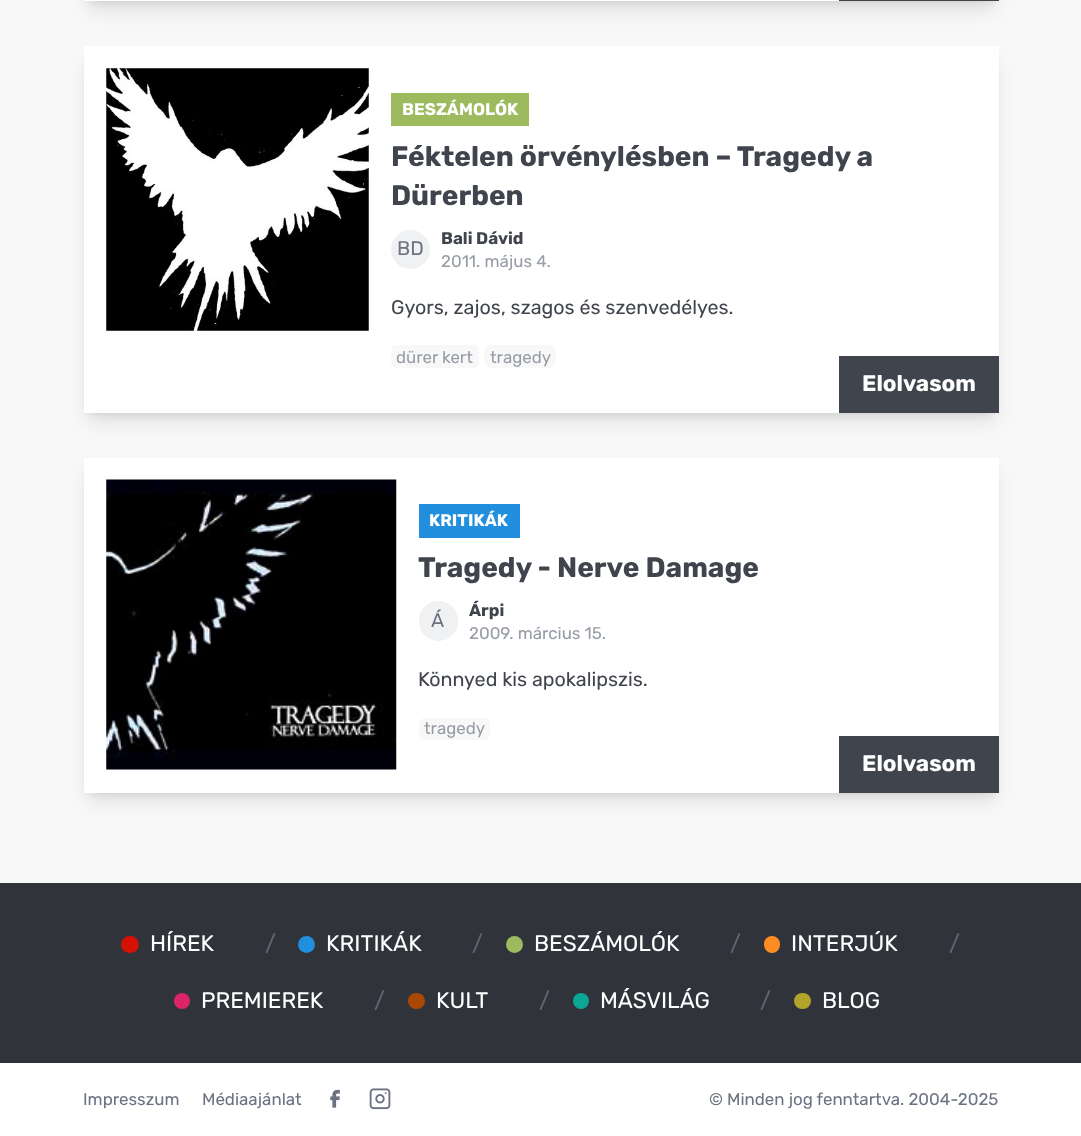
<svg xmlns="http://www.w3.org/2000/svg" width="1081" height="1136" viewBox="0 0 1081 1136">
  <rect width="100%" height="100%" fill="#f8f8f9"/>
  <path d="M89 -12h905v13H89z" fill="#0000001a" filter="blur(4px)"/>
  <path d="M88 -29h907v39H88z" fill="#0000001a" filter="blur(9.5px)"/>
  <path d="M84 0h755v1H84z" fill="#fff"/>
  <path d="M839 0h160v1H839z" fill="#40444d"/>
  <path d="M89 56h905v357H89z" fill="#0000001a" filter="blur(4px)"/>
  <path d="M88 63h907v358H88z" fill="#0000001a" filter="blur(9.5px)"/>
  <path d="M84 46h915v367H84z" fill="#fff"/>
  <image x="106" y="68" width="263" height="263" href="img/1.png"/>
  <path d="M391 93h138v33H391z" fill="#9dba5e"/>
  <circle cx="410.5" cy="249.5" r="19.5" fill="#f0f1f2"/>
  <rect x="391" y="345" width="88" height="23" rx="6" fill="#f8f8f9"/>
  <rect x="484" y="345" width="72" height="23" rx="6" fill="#f8f8f9"/>
  <path d="M839 356h160v57H839z" fill="#40444d"/>
  <path d="M89 468h905v325H89z" fill="#0000001a" filter="blur(4px)"/>
  <path d="M88 474h907v327H88z" fill="#0000001a" filter="blur(9.5px)"/>
  <path d="M84 458h915v335H84z" fill="#fff"/>
  <image x="106" y="479" width="291" height="291" href="img/2.png"/>
  <path d="M419 504h101v34H419z" fill="#218ede"/>
  <rect x="419" y="601" width="39" height="40" rx="19.5" fill="#f0f1f2"/>
  <rect x="419" y="718" width="71" height="22" rx="6" fill="#f8f8f9"/>
  <path d="M839 736h160v57H839z" fill="#40444d"/>
  <path d="M0 883h1081v180H0z" fill="#30333a"/>
  <rect x="121" y="936" width="18" height="17" rx="8.5" fill="#d41104"/>
  <circle cx="306.5" cy="944.5" r="8.5" fill="#218ede"/>
  <circle cx="514.5" cy="944.5" r="8.5" fill="#9dba5e"/>
  <rect x="764" y="936" width="16" height="17" rx="8" fill="#ff8c22"/>
  <circle cx="182" cy="1001" r="8" fill="#dc2567"/>
  <rect x="408" y="993" width="17" height="16" rx="8" fill="#a84802"/>
  <circle cx="581" cy="1001" r="8" fill="#0ba794"/>
  <rect x="794" y="993" width="17" height="16" rx="8" fill="#b2a42a"/>
  <path d="M0 1063h1081v73H0z" fill="#fff"/>
  <image x="330" y="1089" width="10" height="19" href="img/3.png"/>
  <image x="369" y="1088" width="22" height="22" href="img/4.png"/>
  <text x="402" y="115" font-family="Rubik" font-size="16.9" font-weight="bold" fill="#fff">BESZÁMOLÓK</text>
  <g font-family="Rubik" font-size="28.1" font-weight="bold" fill="#40444d">
    <text x="391" y="166">Féktelen örvénylésben – Tragedy a</text>
    <text x="391" y="205">Dürerben</text>
  </g>
  <text x="397" y="255" font-family="Rubik" font-size="19.7" fill="#6b7280">BD</text>
  <text x="441" y="244" font-family="Rubik" font-size="16.9" font-weight="bold" fill="#40444d">Bali Dávid</text>
  <text x="441" y="267" font-family="Rubik" font-size="16.9" fill="#979ca6">2011. május 4.</text>
  <text x="391" y="314" font-family="Rubik" font-size="19.7" fill="#40444d">Gyors, zajos, szagos és szenvedélyes.</text>
  <g font-family="Rubik" font-size="16.9" fill="#979ca6">
    <text x="396" y="363">dürer kert</text>
    <text x="490" y="363">tragedy</text>
  </g>
  <text x="862" y="391" font-family="Rubik" font-size="22.5" font-weight="bold" fill="#fff">Elolvasom</text>
  <text x="429" y="526" font-family="Rubik" font-size="16.9" font-weight="bold" fill="#fff">KRITIKÁK</text>
  <text x="418" y="577" font-family="Rubik" font-size="28.1" font-weight="bold" fill="#40444d">Tragedy - Nerve Damage</text>
  <text x="431" y="627" font-family="Rubik" font-size="19.7" fill="#6b7280">Á</text>
  <text x="469" y="616" font-family="Rubik" font-size="16.9" font-weight="bold" fill="#40444d">Árpi</text>
  <text x="469" y="639" font-family="Rubik" font-size="16.9" fill="#979ca6">2009. március 15.</text>
  <text x="418" y="686" font-family="Rubik" font-size="19.7" fill="#40444d">Könnyed kis apokalipszis.</text>
  <text x="424" y="734" font-family="Rubik" font-size="16.9" fill="#979ca6">tragedy</text>
  <text x="862" y="771" font-family="Rubik" font-size="22.5" font-weight="bold" fill="#fff">Elolvasom</text>
  <text x="150" y="951" font-family="Rubik" font-size="22.5" fill="#fff">HÍREK</text>
  <text x="265" y="951" font-family="Rubik" font-size="22.5" fill="#606773">/</text>
  <text x="326" y="951" font-family="Rubik" font-size="22.5" fill="#fff">KRITIKÁK</text>
  <text x="472" y="951" font-family="Rubik" font-size="22.5" fill="#606773">/</text>
  <text x="534" y="951" font-family="Rubik" font-size="22.5" fill="#fff">BESZÁMOLÓK</text>
  <text x="730" y="951" font-family="Rubik" font-size="22.5" fill="#606773">/</text>
  <text x="791" y="951" font-family="Rubik" font-size="22.5" fill="#fff">INTERJÚK</text>
  <text x="949" y="951" font-family="Rubik" font-size="22.5" fill="#606773">/</text>
  <text x="201" y="1008" font-family="Rubik" font-size="22.5" fill="#fff">PREMIEREK</text>
  <text x="374" y="1008" font-family="Rubik" font-size="22.5" fill="#606773">/</text>
  <text x="436" y="1008" font-family="Rubik" font-size="22.5" fill="#fff">KULT</text>
  <text x="539" y="1008" font-family="Rubik" font-size="22.5" fill="#606773">/</text>
  <text x="600" y="1008" font-family="Rubik" font-size="22.5" fill="#fff">MÁSVILÁG</text>
  <text x="760" y="1008" font-family="Rubik" font-size="22.5" fill="#606773">/</text>
  <text x="822" y="1008" font-family="Rubik" font-size="22.5" fill="#fff">BLOG</text>
  <g font-family="Rubik" font-size="16.9" fill="#6b7280">
    <text x="83" y="1105">Impresszum</text>
    <text x="202" y="1105">Médiaajánlat</text>
    <text x="709" y="1105">© Minden jog fenntartva. 2004-2025</text>
  </g>
</svg>
